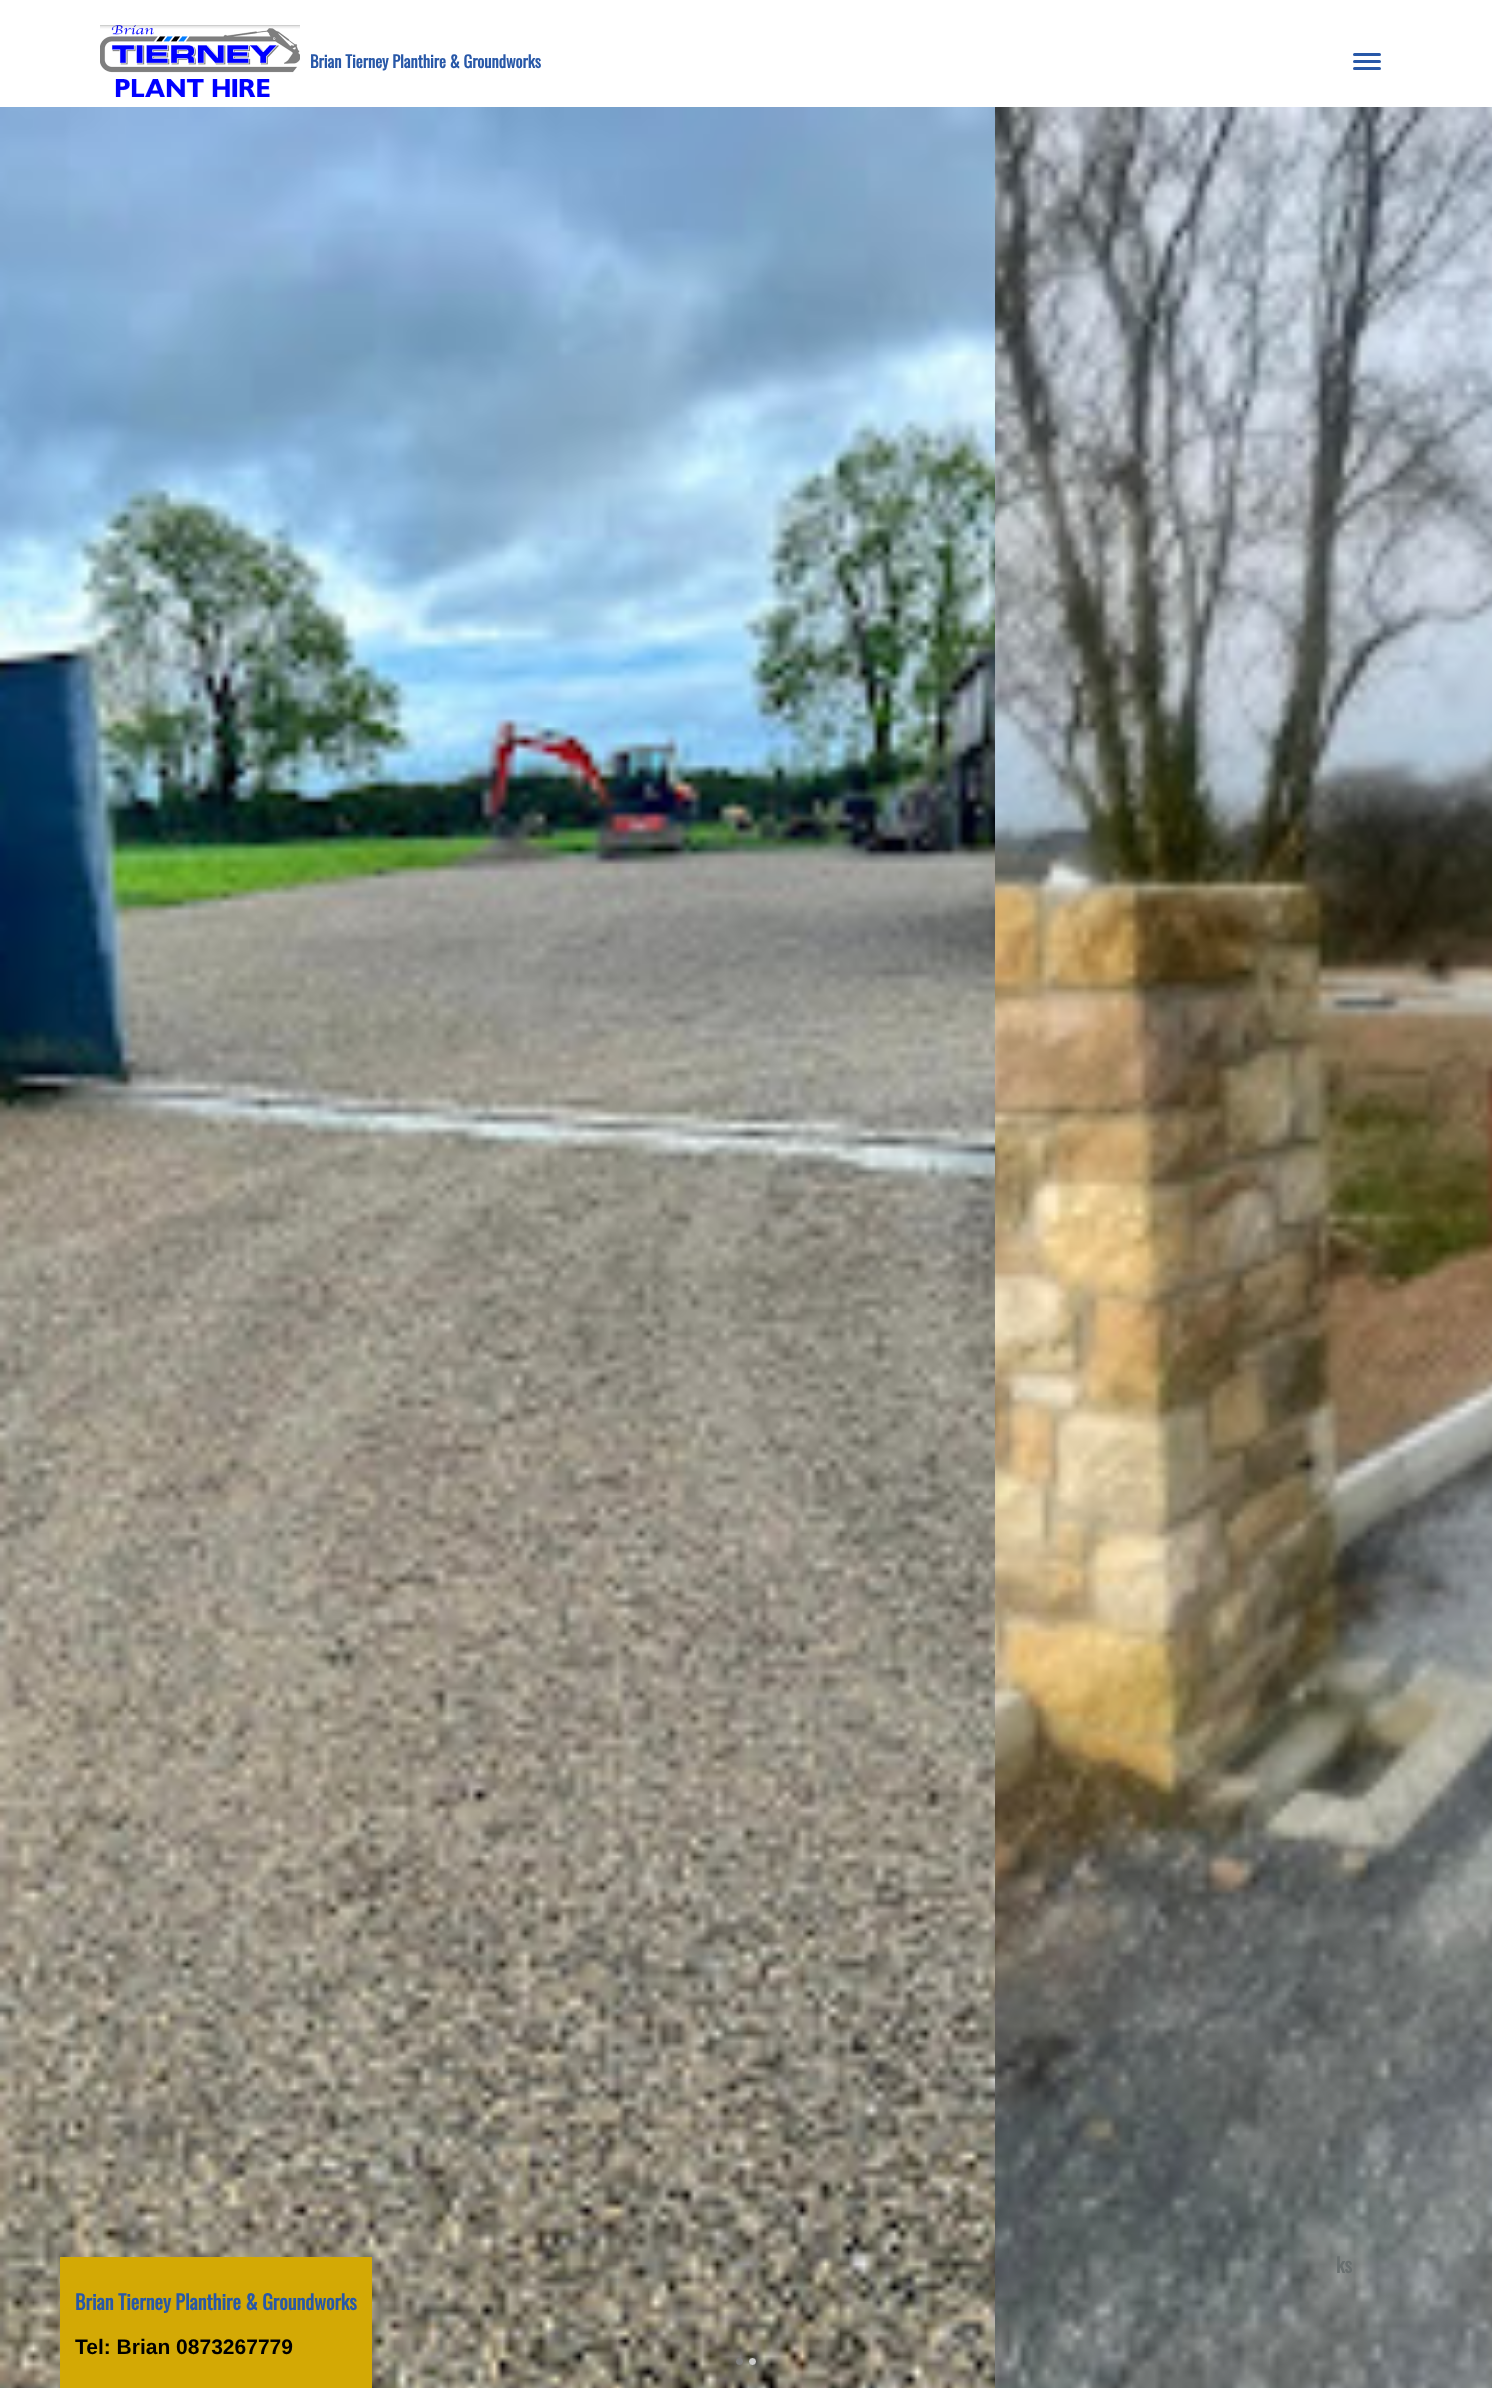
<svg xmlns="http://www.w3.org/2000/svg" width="1492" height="2388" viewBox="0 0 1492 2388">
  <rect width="100%" height="100%" fill="#fff"/>
  <image x="100" y="25" width="200" height="72" href="img/1.png"/>
  <rect x="1353" y="60" width="28" height="3" rx="1.5" fill="#2858a8"/>
  <rect x="1353" y="53" width="28" height="3" rx="1.5" fill="#2858a8"/>
  <rect x="1353" y="67" width="28" height="3" rx="1.5" fill="#2858a8"/>
  <image x="995" y="107" width="497" height="2281" href="img/2.png"/>
  <image x="0" y="107" width="995" height="2281" href="img/3.png"/>
  <path d="M60 2257h312v131H60z" fill="#d3a905"/>
  <image x="736" y="2358" width="7" height="7" href="img/4.png"/>
  <image x="749" y="2358" width="7" height="7" href="img/5.png"/>
  <text x="310" y="68" font-family="Oswald" font-size="16.4" font-weight="bold" fill="#2858a8">Brian Tierney Planthire &amp; Groundworks</text>
  <text x="1336" y="2273" font-family="Oswald" font-size="20" font-weight="bold" fill="#686f6f">ks</text>
  <text x="75" y="2310" font-family="Oswald" font-size="20" font-weight="bold" fill="#2858a8">Brian Tierney Planthire &amp; Groundworks</text>
  <text x="75" y="2354" font-family="Liberation Sans" font-size="21" font-weight="bold" fill="#000">Tel: Brian 0873267779</text>
</svg>
